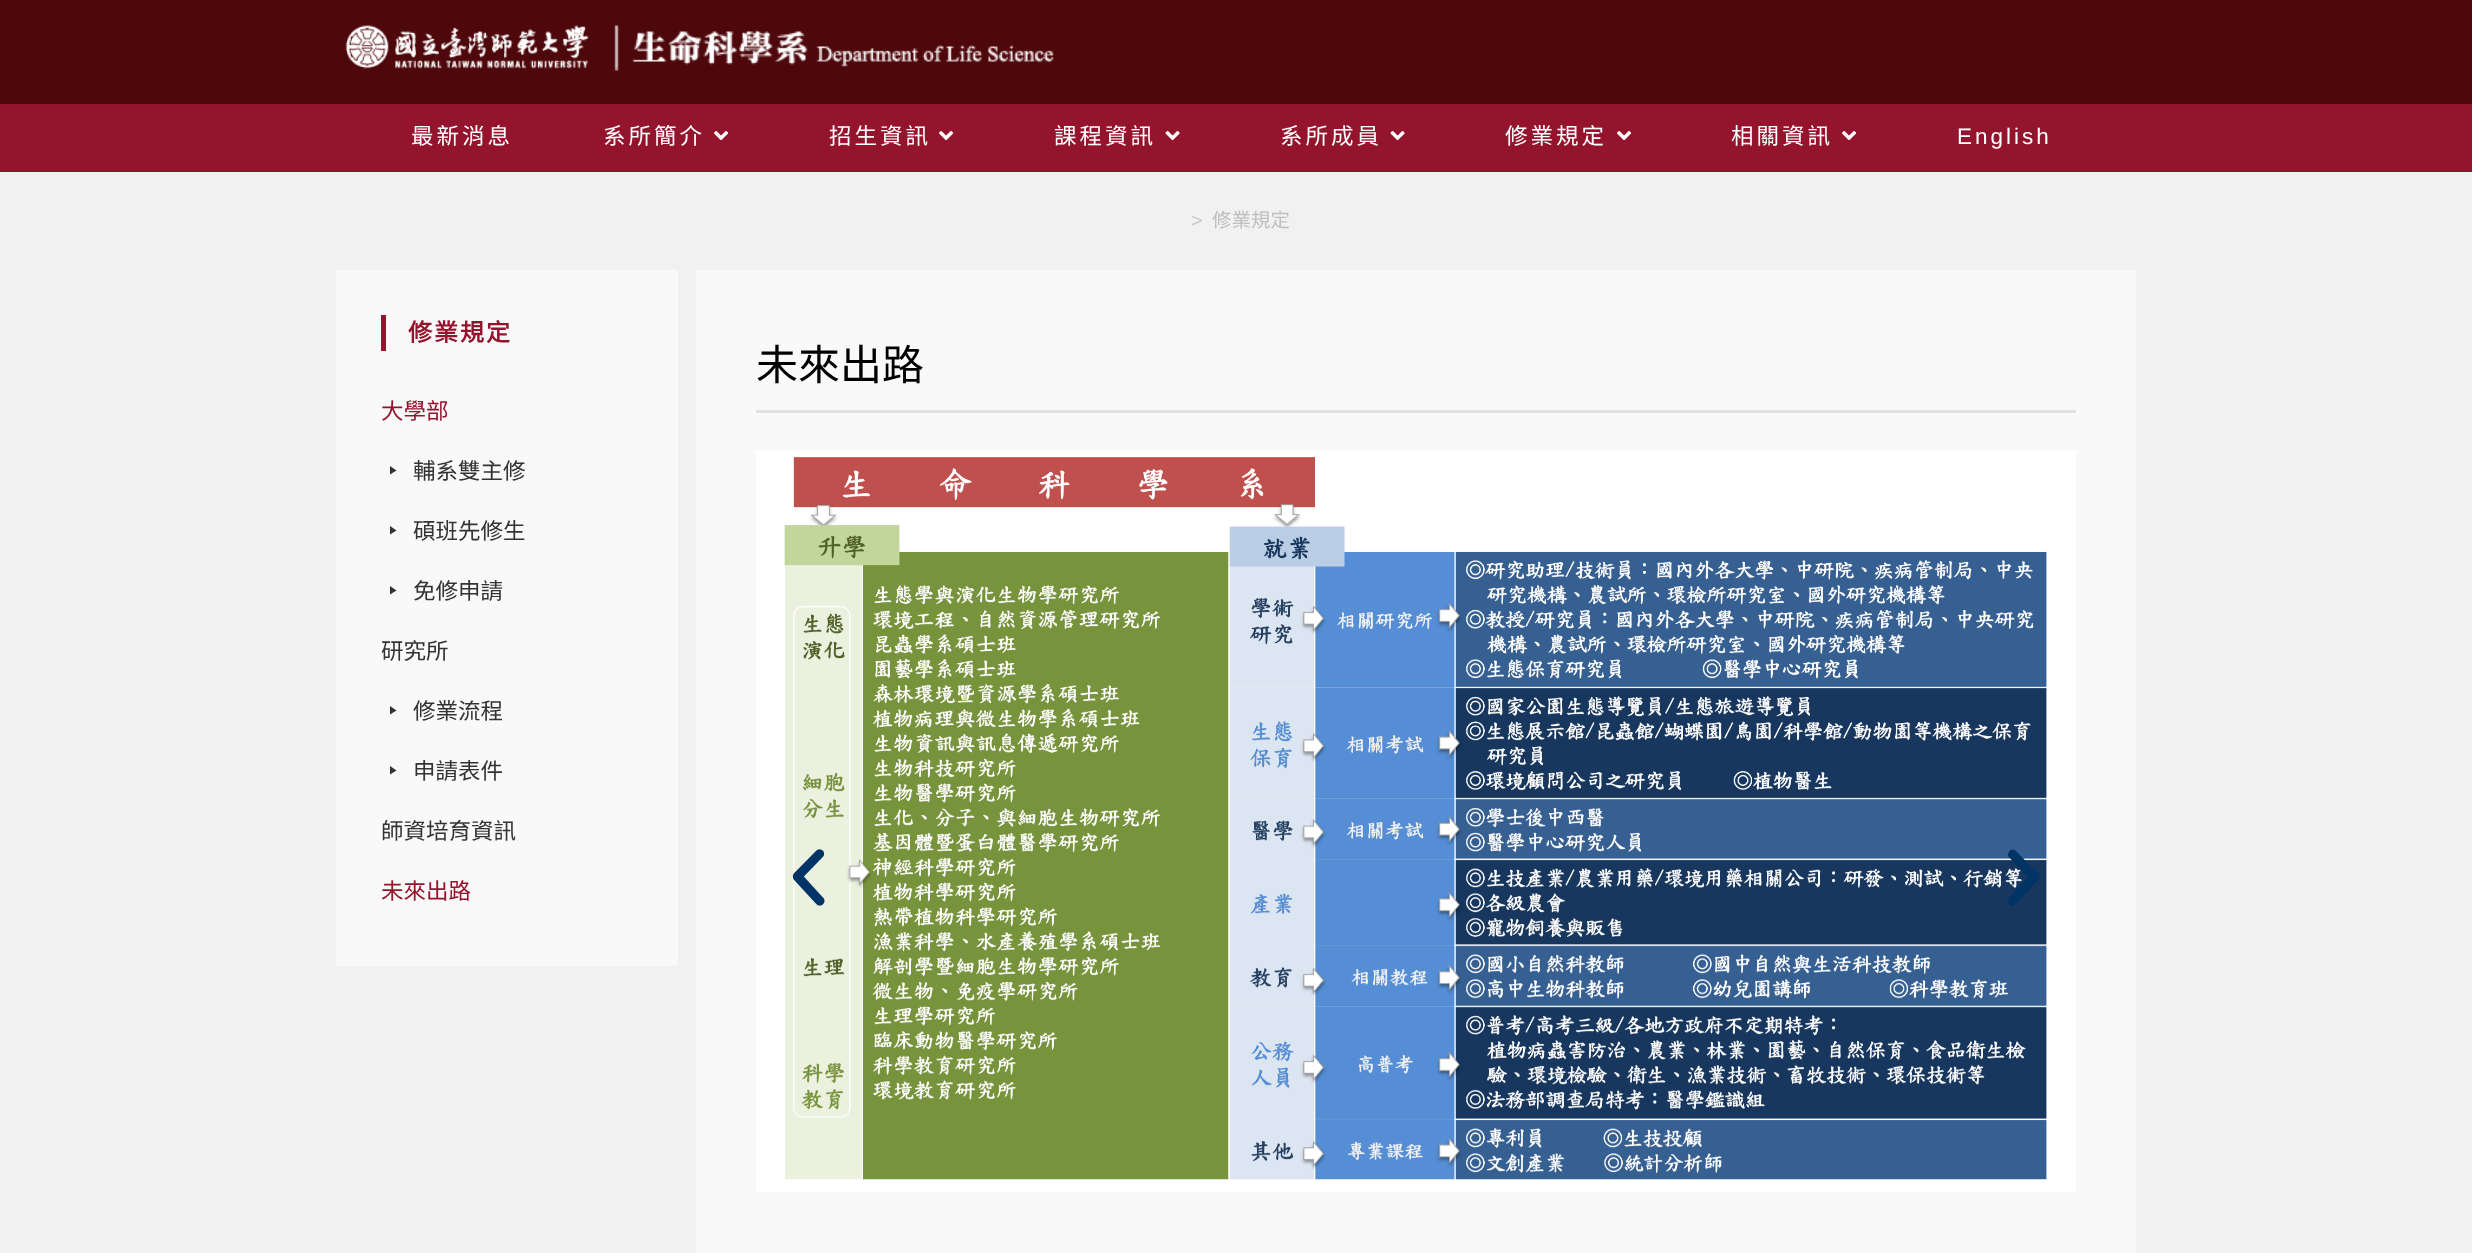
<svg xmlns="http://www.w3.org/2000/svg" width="2472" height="1253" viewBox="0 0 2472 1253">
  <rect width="100%" height="100%" fill="#f1f1f1"/>
  <path d="M0 0h2472v104H0z" fill="#4e070b"/>
  <image x="345" y="25" width="244" height="44" href="img/1.png"/>
  <image x="614" y="25" width="440" height="46" href="img/2.png"/>
  <path d="M0 104h2472v68H0z" fill="#94142d"/>
  <image x="714" y="131" width="15" height="10" href="img/3.png"/>
  <image x="939" y="131" width="15" height="10" href="img/3.png"/>
  <image x="1165" y="131" width="15" height="10" href="img/4.png"/>
  <image x="1390" y="131" width="15" height="10" href="img/4.png"/>
  <image x="1617" y="131" width="15" height="10" href="img/3.png"/>
  <image x="1842" y="131" width="15" height="10" href="img/3.png"/>
  <path d="M336 270h342v696H336z" fill="#f9f9f9"/>
  <path d="M381 315h5v36H381z" fill="#94142d"/>
  <path d="M390 466L396.5 470.5L390 474.5Z" fill="#333"/>
  <path d="M390 526L396.5 530.5L390 534.5Z" fill="#333"/>
  <path d="M390 586L396.5 590.5L390 594.5Z" fill="#333"/>
  <path d="M390 706L396.5 710.5L390 714.5Z" fill="#333"/>
  <path d="M390 766L396.5 770.5L390 774.5Z" fill="#333"/>
  <path d="M696 270h1440v983H696z" fill="#f9f9f9"/>
  <path d="M756 410h1320v3H756z" fill="#e0e2e1"/>
  <image x="756" y="450" width="1320" height="742" href="img/5.png"/>
  <image x="792" y="849" width="33" height="57" href="img/6.png"/>
  <path d="M2038 880C2042 876 2037 872 2034 870L2020 855C2017 852 2012 846 2009 852C2008 853 2008 855 2008 856L2028 877L2015 891C2013 894 2008 897 2008 901C2007 905 2012 907 2015 905Z" fill="#036"/>
  <g font-family="Noto Sans CJK TC" font-size="22.5" letter-spacing="3" fill="#fff">
    <text x="411" y="144">最新消息</text>
    <text x="603" y="144">系所簡介</text>
    <text x="829" y="144">招生資訊</text>
    <text x="1054" y="144">課程資訊</text>
    <text x="1280" y="144">系所成員</text>
    <text x="1505" y="144">修業規定</text>
    <text x="1731" y="144">相關資訊</text>
  </g>
  <text x="1957" y="144" font-family="Liberation Sans" font-size="22.5" letter-spacing="3" fill="#fff">English</text>
  <text x="1191" y="227" font-family="Liberation Sans" font-size="19.5" fill="#c6c6c6">&gt;</text>
  <text x="1212" y="227" font-family="Noto Sans CJK TC" font-size="19.5" fill="#bfbfbf">修業規定</text>
  <text x="408" y="341" font-family="Noto Sans CJK TC" font-size="24" font-weight="bold" letter-spacing="2" fill="#94142d">修業規定</text>
  <text x="381" y="419" font-family="Noto Sans CJK TC" font-size="22.5" fill="#94142d">大學部</text>
  <g font-family="Noto Sans CJK TC" font-size="22.5" fill="#333">
    <text x="413" y="479">輔系雙主修</text>
    <text x="413" y="539">碩班先修生</text>
    <text x="413" y="599">免修申請</text>
    <text x="381" y="659">研究所</text>
    <text x="413" y="719">修業流程</text>
    <text x="413" y="779">申請表件</text>
    <text x="381" y="839">師資培育資訊</text>
  </g>
  <text x="381" y="899" font-family="Noto Sans CJK TC" font-size="22.5" fill="#94142d">未來出路</text>
  <text x="756" y="380" font-family="Noto Sans CJK TC" font-size="42" fill="#000">未來出路</text>
</svg>
